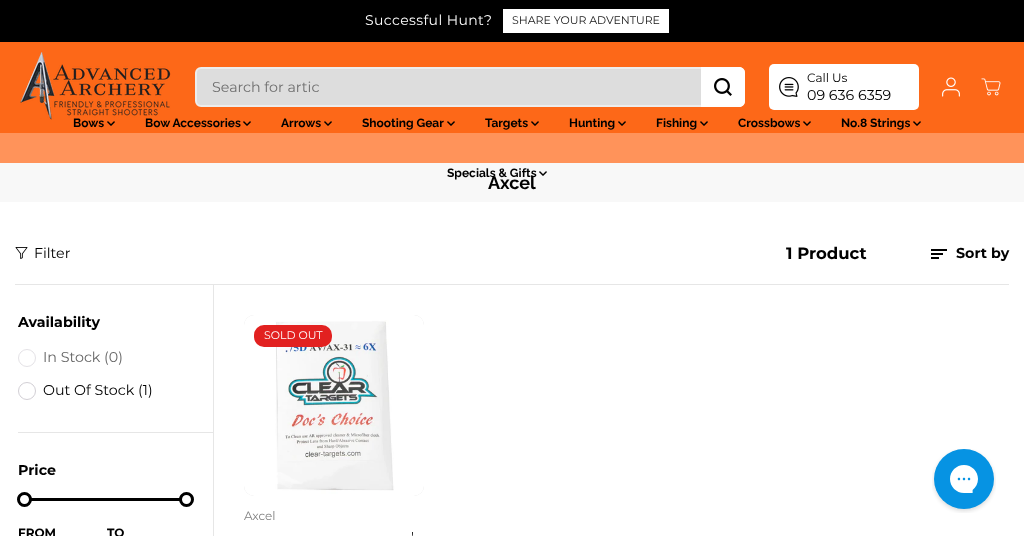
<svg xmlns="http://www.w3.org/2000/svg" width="1024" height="536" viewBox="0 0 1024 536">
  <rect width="100%" height="100%" fill="#fff"/>
  <path d="M0 0h1024v42H0z" fill="#000"/>
  <path d="M503 9h166v24H503z" fill="#fff"/>
  <path d="M0 42h1024v91H0z" fill="#fd6818"/>
  <image x="20" y="52" width="151" height="68" href="img/1.png"/>
  <rect x="196" y="68" width="548" height="38" rx="5" fill="#ddd" stroke="#ededed" stroke-width="2"/>
  <path d="M701 67H739C742.5 67 745 69.5 745 73V101C745 104.5 742.5 107 739 107H701Z" fill="#fff"/>
  <image x="714" y="78" width="18" height="18" href="img/2.png"/>
  <rect x="769" y="64" width="150" height="46" rx="5" fill="#fff"/>
  <image x="779" y="77" width="20" height="20" href="img/3.png"/>
  <image x="942" y="77" width="18" height="20" href="img/4.png"/>
  <image x="981" y="78" width="20" height="18" href="img/5.png"/>
  <path d="M0 133h1024v30H0z" fill="#ff935a"/>
  <image x="107" y="121" width="8" height="5" href="img/6.png"/>
  <image x="243" y="121" width="8" height="5" href="img/6.png"/>
  <image x="324" y="121" width="8" height="5" href="img/6.png"/>
  <image x="447" y="121" width="8" height="5" href="img/6.png"/>
  <image x="531" y="121" width="8" height="5" href="img/6.png"/>
  <image x="618" y="121" width="8" height="5" href="img/6.png"/>
  <image x="700" y="121" width="8" height="5" href="img/6.png"/>
  <image x="803" y="121" width="8" height="5" href="img/6.png"/>
  <image x="913" y="121" width="8" height="5" href="img/6.png"/>
  <path d="M0 163h1024v39H0z" fill="#f8f8f8"/>
  <image x="539" y="171" width="8" height="5" href="img/7.png"/>
  <path d="M15 284h994v1H15z" fill="#e6e6e6"/>
  <image x="15" y="247" width="13" height="12" href="img/8.png"/>
  <image x="931" y="249" width="16" height="10" href="img/9.png"/>
  <path d="M213 285h1v251H213z" fill="#e6e6e6"/>
  <path d="M18 432h195v1H18z" fill="#e6e6e6"/>
  <circle cx="27" cy="358" r="8.5" fill="none" stroke="#e4e2e6"/>
  <circle cx="27" cy="391" r="8.5" fill="none" stroke="#d2cfd5"/>
  <path d="M24 498h162v3H24z" fill="#000"/>
  <circle cx="24.5" cy="499.5" r="6" fill="#fff" stroke="#000" stroke-width="3"/>
  <circle cx="186.5" cy="499.5" r="6" fill="#fff" stroke="#000" stroke-width="3"/>
  <rect x="244" y="315" width="180" height="181" rx="10" fill="#eaeaea"/>
  <image x="244" y="315" width="180" height="181" href="img/10.png"/>
  <rect x="254" y="325" width="78" height="22" rx="10" fill="#e22120"/>
  <image x="932" y="449" width="64" height="64" href="img/11.png"/>
  <text x="365" y="25" font-family="Montserrat" font-size="14" letter-spacing="0.4" fill="#fff">Successful Hunt?</text>
  <text x="512" y="24" font-family="Montserrat" font-size="11" fill="#181818">SHARE YOUR ADVENTURE</text>
  <text x="212" y="92" font-family="Montserrat" font-size="14.25" fill="#6f6f6f">Search for artic</text>
  <text x="807" y="82" font-family="Montserrat" font-size="12" fill="#000">Call Us</text>
  <text x="807" y="100" font-family="Montserrat" font-size="14.25" fill="#000">09 636 6359</text>
  <g font-family="Raleway" font-size="12" font-weight="bold" fill="#000">
    <text x="73" y="127">Bows</text>
    <text x="145" y="127">Bow Accessories</text>
    <text x="281" y="127">Arrows</text>
    <text x="362" y="127">Shooting Gear</text>
    <text x="485" y="127">Targets</text>
    <text x="569" y="127">Hunting</text>
    <text x="656" y="127">Fishing</text>
    <text x="738" y="127">Crossbows</text>
    <text x="841" y="127">No.8 Strings</text>
  </g>
  <text x="488" y="189" font-family="Raleway" font-size="18" font-weight="bold" fill="#000">Axcel</text>
  <text x="447" y="177" font-family="Raleway" font-size="12" font-weight="bold" fill="#000">Specials &amp; Gifts</text>
  <text x="34" y="258" font-family="Montserrat" font-size="14.25" fill="#000">Filter</text>
  <text x="786" y="259" font-family="Montserrat" font-size="16.5" font-weight="bold" fill="#000">1 Product</text>
  <g font-family="Montserrat" font-size="14.25" font-weight="bold" fill="#000">
    <text x="956" y="258">Sort by</text>
    <text x="18" y="327">Availability</text>
  </g>
  <text x="43" y="362" font-family="Montserrat" font-size="14.25" fill="#666">In Stock (0)</text>
  <text x="43" y="395" font-family="Montserrat" font-size="14.25" fill="#000">Out Of Stock (1)</text>
  <text x="18" y="475" font-family="Montserrat" font-size="14.25" font-weight="bold" fill="#000">Price</text>
  <g font-family="Montserrat" font-size="12" font-weight="bold" fill="#000">
    <text x="18" y="537">FROM</text>
    <text x="107" y="537">TO</text>
  </g>
  <text x="264" y="339" font-family="Montserrat" font-size="11" fill="#fff">SOLD OUT</text>
  <text x="244" y="520" font-family="Montserrat" font-size="12" fill="#808080">Axcel</text>
  <text x="411" y="542" font-family="Montserrat" font-size="14.25" fill="#000">'</text>
</svg>
